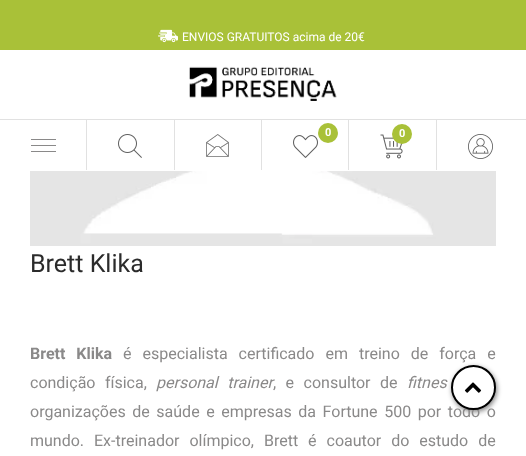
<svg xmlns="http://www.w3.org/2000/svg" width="526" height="456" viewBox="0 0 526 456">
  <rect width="100%" height="100%" fill="#fff"/>
  <path d="M0 0h526v50H0z" fill="#a9c138"/>
  <image x="158" y="29" width="20" height="14" href="img/1.png"/>
  <image x="189" y="66" width="148" height="35" href="img/2.png"/>
  <path d="M0 119h526v1H0z" fill="#e1e1e1"/>
  <path d="M86 120h1v50H86z" fill="#e1e1e1"/>
  <path d="M31 139h25v1H31z" fill="#8a8989"/>
  <path d="M31 145h25v1H31z" fill="#8a8989"/>
  <path d="M31 151h25v1H31z" fill="#8a8989"/>
  <path d="M174 120h1v50H174z" fill="#e1e1e1"/>
  <image x="118" y="134" width="24" height="24" href="img/3.png"/>
  <path d="M261 120h1v50H261z" fill="#e1e1e1"/>
  <image x="206" y="134" width="23" height="23" href="img/4.png"/>
  <path d="M348 120h1v50H348z" fill="#e1e1e1"/>
  <circle cx="328" cy="133" r="10" fill="#a9c138"/>
  <image x="293" y="135" width="25" height="23" href="img/5.png"/>
  <path d="M436 120h1v50H436z" fill="#e1e1e1"/>
  <image x="380" y="134" width="23" height="25" href="img/6.png"/>
  <circle cx="402" cy="134" r="10" fill="#a9c138"/>
  <image x="468" y="134" width="25" height="25" href="img/7.png"/>
  <image x="30" y="171" width="466" height="75" href="img/8.png"/>
  <rect x="452" y="367" width="45" height="45" rx="22.5" fill="#00000080" filter="blur(2.5px)"/>
  <text x="182" y="41" font-family="Roboto" font-size="12" fill="#fff">ENVIOS GRATUITOS acima de 20€</text>
  <g font-family="Roboto" font-size="11" font-weight="bold" fill="#fff">
    <text x="325" y="136">0</text>
    <text x="399" y="137">0</text>
  </g>
  <text x="30" y="272" font-family="Roboto" font-size="25" fill="#2b2b2b">Brett Klika</text>
  <text x="30" y="359" word-spacing="7" font-family="Roboto" font-size="16" font-weight="bold" fill="#8a8989">Brett Klika</text>
  <g font-family="Roboto" font-size="16" fill="#8a8989">
    <text x="123" y="359" word-spacing="7">é especialista certificado em treino de força e</text>
    <text x="30" y="388" word-spacing="5.5">condição física,</text>
  </g>
  <text x="156" y="388" word-spacing="5.5" font-family="Roboto" font-size="16" font-style="italic" fill="#8a8989">personal trainer</text>
  <text x="273" y="388" word-spacing="5.5" font-family="Roboto" font-size="16" fill="#8a8989">, e consultor de</text>
  <text x="407" y="388" font-family="Roboto" font-size="16" font-style="italic" fill="#8a8989">fitnes</text>
  <g font-family="Roboto" font-size="16" fill="#8a8989">
    <text x="30" y="417" word-spacing="2.6">organizações de saúde e empresas da Fortune 500 por todo o</text>
    <text x="30" y="446" word-spacing="6">mundo. Ex-treinador olímpico, Brett é coautor do estudo de</text>
  </g>
  <circle cx="473.5" cy="387.5" r="21.5" fill="#fff" stroke="#000" stroke-width="2"/>
  <image x="464" y="382" width="18" height="11" href="img/9.png"/>
</svg>
